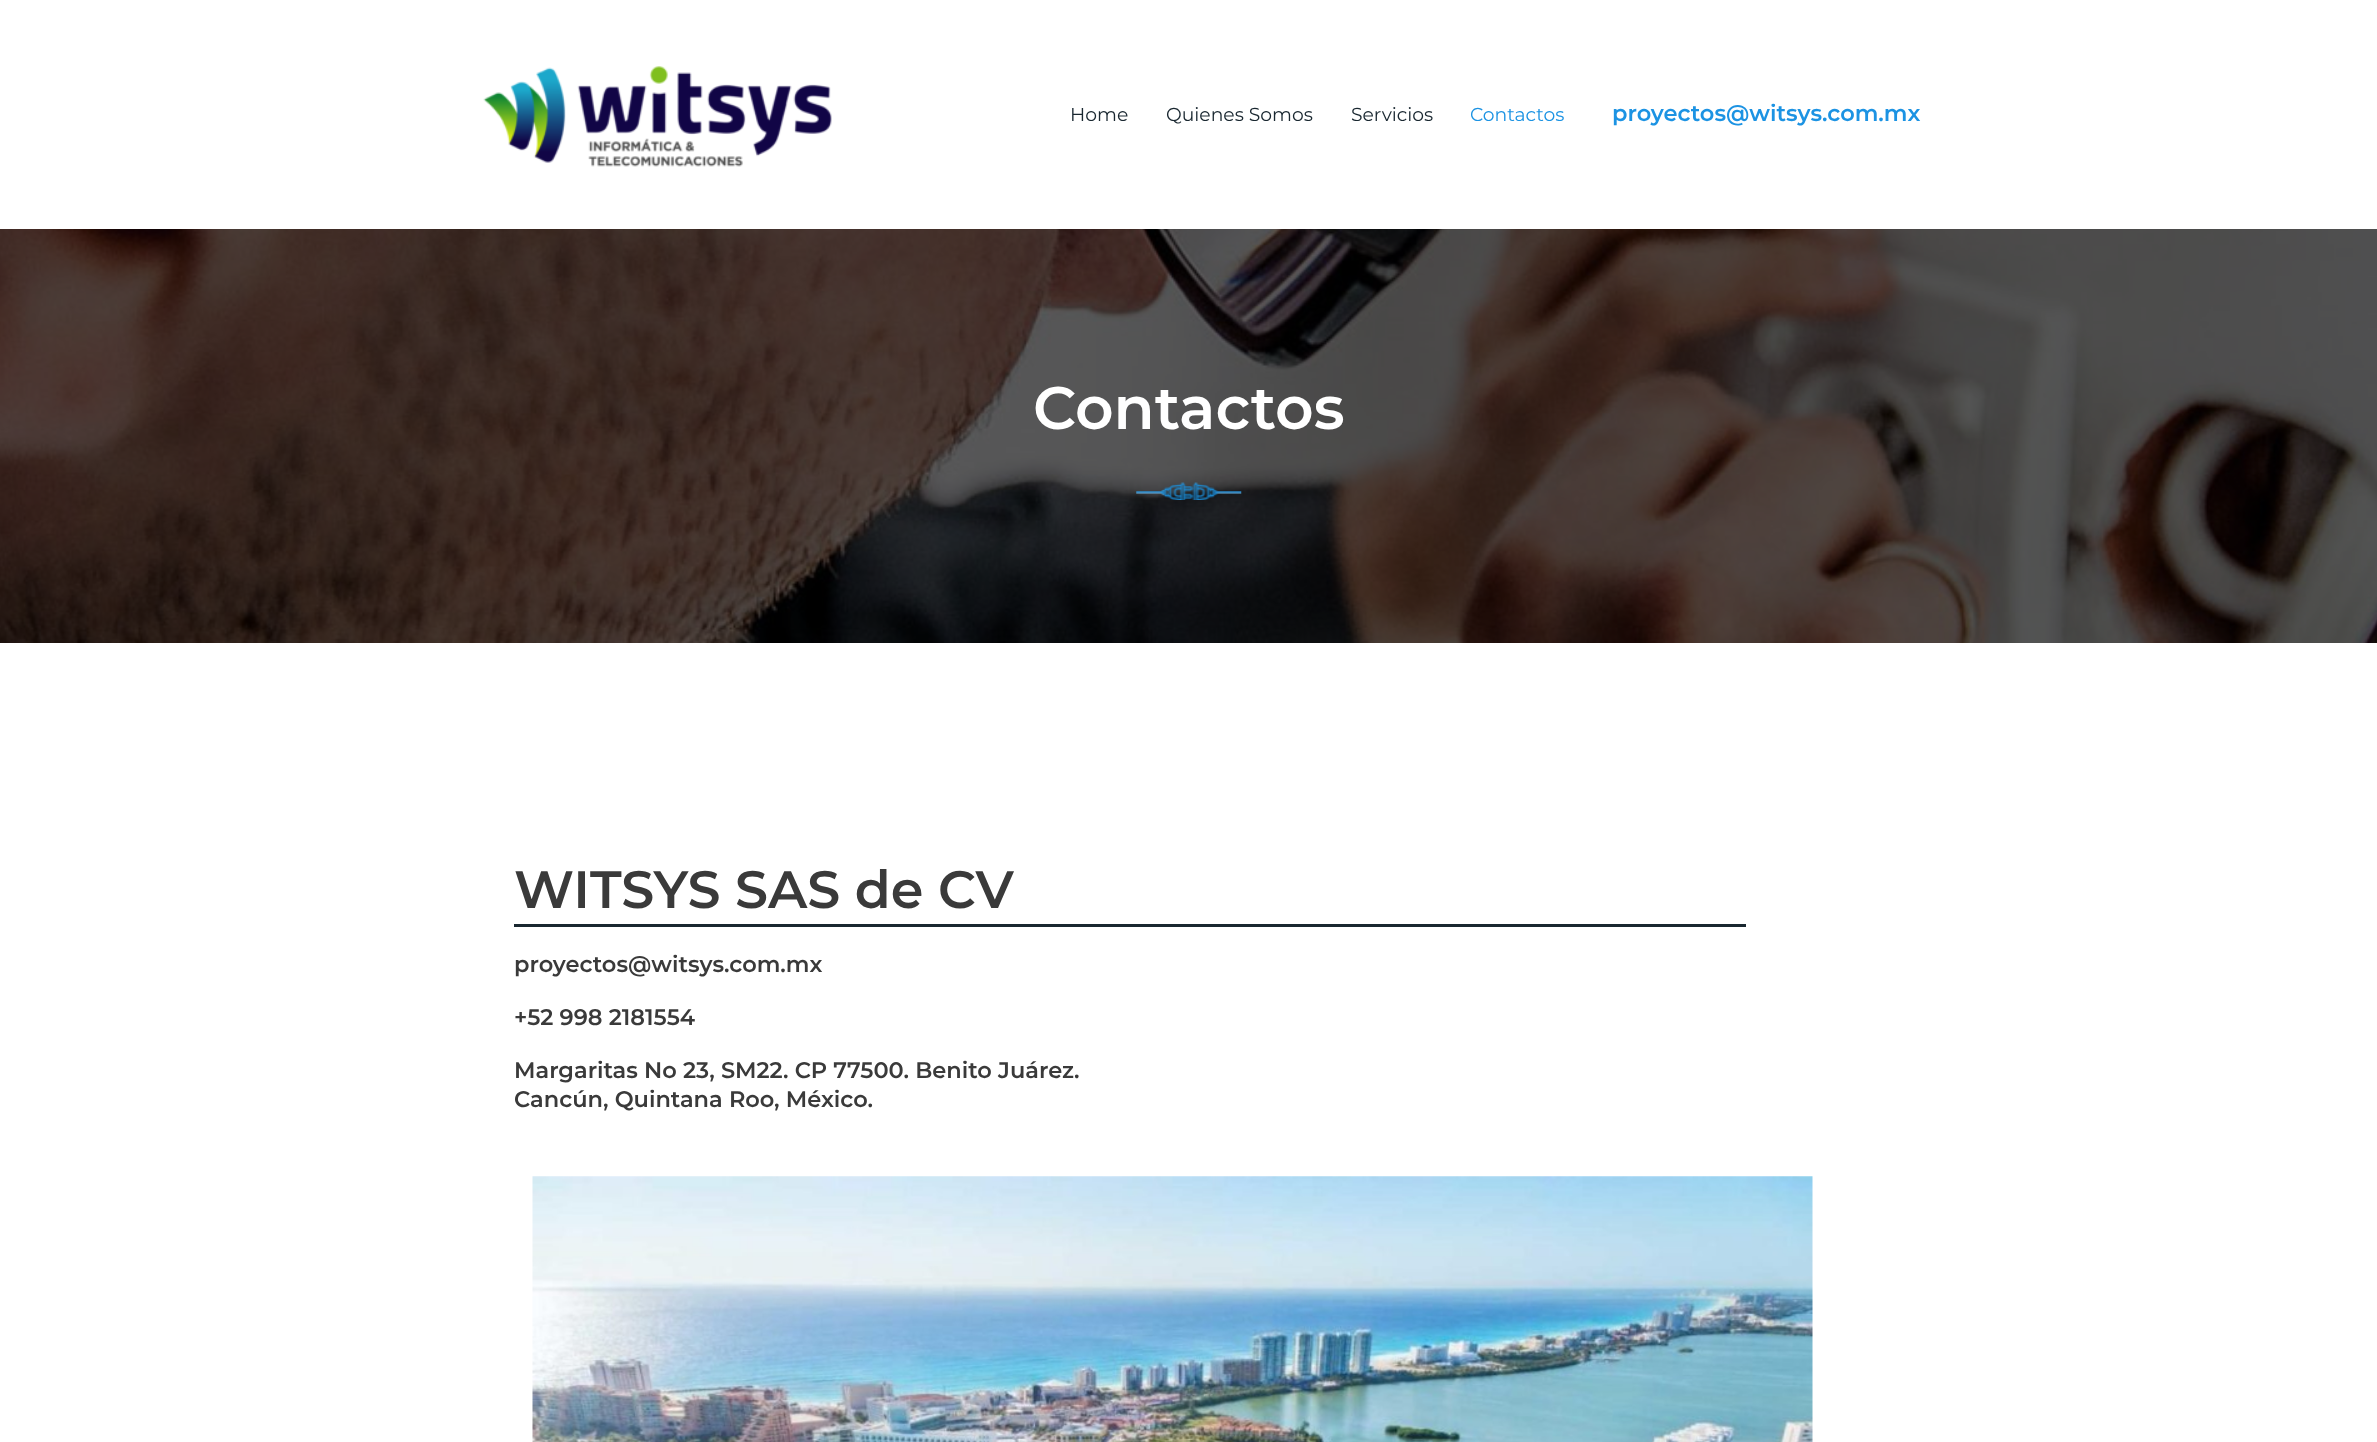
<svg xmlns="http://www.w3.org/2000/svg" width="2377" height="1442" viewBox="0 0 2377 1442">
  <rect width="100%" height="100%" fill="#fff"/>
  <image x="483" y="66" width="349" height="101" href="img/1.png"/>
  <image x="0" y="229" width="2377" height="414" href="img/2.png"/>
  <image x="1136" y="482" width="106" height="18" href="img/3.png"/>
  <path d="M514 924h1232v3H514z" fill="#192730"/>
  <image x="532" y="1176" width="1281" height="266" href="img/4.png"/>
  <g font-family="Montserrat" font-size="18.75" fill="#192730">
    <text x="1070" y="121">Home</text>
    <text x="1166" y="121">Quienes Somos</text>
    <text x="1351" y="121">Servicios</text>
  </g>
  <text x="1470" y="121" font-family="Montserrat" font-size="18.75" fill="#1c93e3">Contactos</text>
  <text x="1612" y="121" font-family="Montserrat" font-size="22.5" font-weight="600" fill="#1c93e3">proyectos@witsys.com.mx</text>
  <text x="1033" y="429" font-family="Montserrat" font-size="60" font-weight="600" fill="#fff">Contactos</text>
  <text x="514" y="908" font-family="Montserrat" font-size="52.5" font-weight="600" fill="#3a3a3a">WITSYS SAS de CV</text>
  <g font-family="Montserrat" font-size="22.5" font-weight="600" fill="#3a3a3a">
    <text x="514" y="972">proyectos@witsys.com.mx</text>
    <text x="514" y="1025">+52 998 2181554</text>
    <text x="514" y="1078">Margaritas No 23, SM22. CP 77500. Benito Juárez.</text>
    <text x="514" y="1107">Cancún, Quintana Roo, México.</text>
  </g>
</svg>
